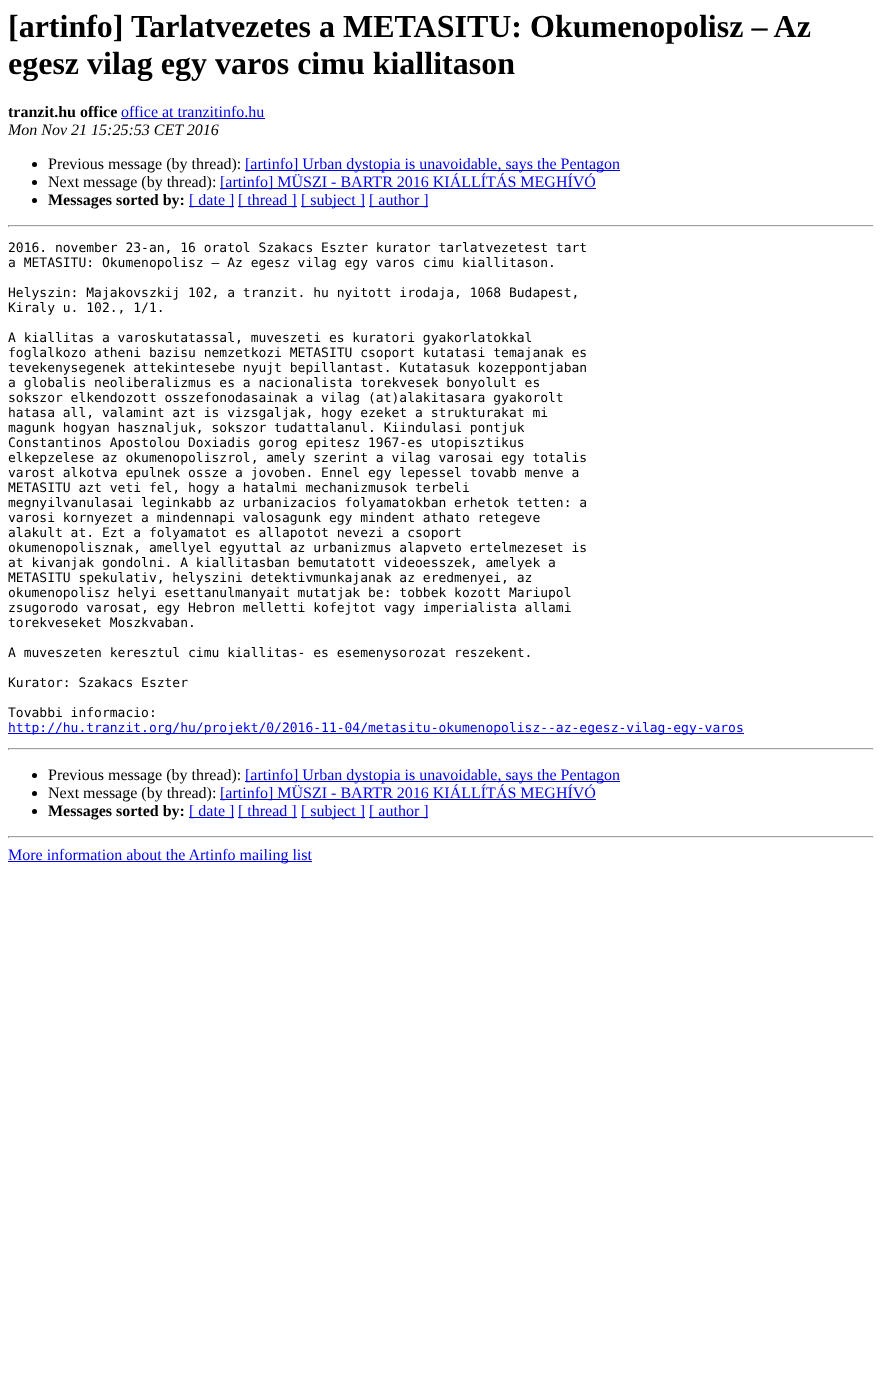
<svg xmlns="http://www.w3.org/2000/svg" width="882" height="1376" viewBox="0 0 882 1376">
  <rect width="100%" height="100%" fill="#fff"/>
  <path d="M121 118h144v1H121z" fill="#00e"/>
  <circle cx="34.5" cy="164.5" r="2.5" fill="#000"/>
  <path d="M245 170h375v1H245z" fill="#00e"/>
  <circle cx="34.5" cy="182.5" r="2.5" fill="#000"/>
  <path d="M220 188h376v1H220z" fill="#00e"/>
  <circle cx="34.5" cy="200.5" r="2.5" fill="#000"/>
  <path d="M189 206h45v1H189z" fill="#00e"/>
  <path d="M238 206h59v1H238z" fill="#00e"/>
  <path d="M301 206h64v1H301z" fill="#00e"/>
  <path d="M369 206h59v1H369z" fill="#00e"/>
  <path d="M8 225h866v1H8z" fill="#9f9f9f"/>
  <path d="M873 225h1v2H873z" fill="#eee"/>
  <path d="M8 226h866v1H8z" fill="#eee"/>
  <path d="M8 225h1v2H8z" fill="#9f9f9f"/>
  <path d="M8 733h736v1H8z" fill="#00e"/>
  <path d="M8 748h866v1H8z" fill="#9f9f9f"/>
  <path d="M873 748h1v2H873z" fill="#eee"/>
  <path d="M8 749h866v1H8z" fill="#eee"/>
  <path d="M8 748h1v2H8z" fill="#9f9f9f"/>
  <circle cx="34.5" cy="775.5" r="2.5" fill="#000"/>
  <path d="M245 781h375v1H245z" fill="#00e"/>
  <circle cx="34.5" cy="793.5" r="2.5" fill="#000"/>
  <path d="M220 799h376v1H220z" fill="#00e"/>
  <circle cx="34.5" cy="811.5" r="2.5" fill="#000"/>
  <path d="M189 817h45v1H189z" fill="#00e"/>
  <path d="M238 817h59v1H238z" fill="#00e"/>
  <path d="M301 817h64v1H301z" fill="#00e"/>
  <path d="M369 817h59v1H369z" fill="#00e"/>
  <path d="M8 836h866v1H8z" fill="#9f9f9f"/>
  <path d="M873 836h1v2H873z" fill="#eee"/>
  <path d="M8 837h866v1H8z" fill="#eee"/>
  <path d="M8 836h1v2H8z" fill="#9f9f9f"/>
  <path d="M8 861h304v1H8z" fill="#00e"/>
  <g font-family="Liberation Serif" font-size="32" font-weight="bold" fill="#000">
    <text x="8" y="37">[artinfo] Tarlatvezetes a METASITU: Okumenopolisz – Az</text>
    <text x="8" y="74">egesz vilag egy varos cimu kiallitason</text>
  </g>
  <text x="8" y="117" font-family="Liberation Serif" font-size="16" font-weight="bold" fill="#000">tranzit.hu office</text>
  <text x="121" y="117" font-family="Liberation Serif" font-size="16" fill="#00e">office at tranzitinfo.hu</text>
  <text x="8" y="135" font-family="Liberation Serif" font-size="16" font-style="italic" fill="#000">Mon Nov 21 15:25:53 CET 2016</text>
  <text x="48" y="169" font-family="Liberation Serif" font-size="16" fill="#000">Previous message (by thread):</text>
  <text x="245" y="169" font-family="Liberation Serif" font-size="16" fill="#00e">[artinfo] Urban dystopia is unavoidable, says the Pentagon</text>
  <text x="48" y="187" font-family="Liberation Serif" font-size="16" fill="#000">Next message (by thread):</text>
  <text x="220" y="187" font-family="Liberation Serif" font-size="16" fill="#00e">[artinfo] MÜSZI - BARTR 2016 KIÁLLÍTÁS MEGHÍVÓ</text>
  <text x="48" y="205" font-family="Liberation Serif" font-size="16" font-weight="bold" fill="#000">Messages sorted by:</text>
  <g font-family="Liberation Serif" font-size="16" fill="#00e">
    <text x="189" y="205">[ date ]</text>
    <text x="238" y="205">[ thread ]</text>
    <text x="301" y="205">[ subject ]</text>
    <text x="369" y="205">[ author ]</text>
  </g>
  <g font-family="DejaVu Sans Mono" font-size="13" fill="#000">
    <text x="8" y="252">2016. november 23-an, 16 oratol Szakacs Eszter kurator tarlatvezetest tart</text>
    <text x="8" y="267">a METASITU: Okumenopolisz – Az egesz vilag egy varos cimu kiallitason.</text>
    <text x="8" y="297">Helyszin: Majakovszkij 102, a tranzit. hu nyitott irodaja, 1068 Budapest,</text>
    <text x="8" y="312">Kiraly u. 102., 1/1.</text>
    <text x="8" y="342">A kiallitas a varoskutatassal, muveszeti es kuratori gyakorlatokkal</text>
    <text x="8" y="357">foglalkozo atheni bazisu nemzetkozi METASITU csoport kutatasi temajanak es</text>
    <text x="8" y="372">tevekenysegenek attekintesebe nyujt bepillantast. Kutatasuk kozeppontjaban</text>
    <text x="8" y="387">a globalis neoliberalizmus es a nacionalista torekvesek bonyolult es</text>
    <text x="8" y="402">sokszor elkendozott osszefonodasainak a vilag (at)alakitasara gyakorolt</text>
    <text x="8" y="417">hatasa all, valamint azt is vizsgaljak, hogy ezeket a strukturakat mi</text>
    <text x="8" y="432">magunk hogyan hasznaljuk, sokszor tudattalanul. Kiindulasi pontjuk</text>
    <text x="8" y="447">Constantinos Apostolou Doxiadis gorog epitesz 1967-es utopisztikus</text>
    <text x="8" y="462">elkepzelese az okumenopoliszrol, amely szerint a vilag varosai egy totalis</text>
    <text x="8" y="477">varost alkotva epulnek ossze a jovoben. Ennel egy lepessel tovabb menve a</text>
    <text x="8" y="492">METASITU azt veti fel, hogy a hatalmi mechanizmusok terbeli</text>
    <text x="8" y="507">megnyilvanulasai leginkabb az urbanizacios folyamatokban erhetok tetten: a</text>
    <text x="8" y="522">varosi kornyezet a mindennapi valosagunk egy mindent athato retegeve</text>
    <text x="8" y="537">alakult at. Ezt a folyamatot es allapotot nevezi a csoport</text>
    <text x="8" y="552">okumenopolisznak, amellyel egyuttal az urbanizmus alapveto ertelmezeset is</text>
    <text x="8" y="567">at kivanjak gondolni. A kiallitasban bemutatott videoesszek, amelyek a</text>
    <text x="8" y="582">METASITU spekulativ, helyszini detektivmunkajanak az eredmenyei, az</text>
    <text x="8" y="597">okumenopolisz helyi esettanulmanyait mutatjak be: tobbek kozott Mariupol</text>
    <text x="8" y="612">zsugorodo varosat, egy Hebron melletti kofejtot vagy imperialista allami</text>
    <text x="8" y="627">torekveseket Moszkvaban.</text>
    <text x="8" y="657">A muveszeten keresztul cimu kiallitas- es esemenysorozat reszekent.</text>
    <text x="8" y="687">Kurator: Szakacs Eszter</text>
    <text x="8" y="717">Tovabbi informacio:</text>
  </g>
  <text x="8" y="732" font-family="DejaVu Sans Mono" font-size="13" fill="#00e">http://hu.tranzit.org/hu/projekt/0/2016-11-04/metasitu-okumenopolisz--az-egesz-vilag-egy-varos</text>
  <text x="48" y="780" font-family="Liberation Serif" font-size="16" fill="#000">Previous message (by thread):</text>
  <text x="245" y="780" font-family="Liberation Serif" font-size="16" fill="#00e">[artinfo] Urban dystopia is unavoidable, says the Pentagon</text>
  <text x="48" y="798" font-family="Liberation Serif" font-size="16" fill="#000">Next message (by thread):</text>
  <text x="220" y="798" font-family="Liberation Serif" font-size="16" fill="#00e">[artinfo] MÜSZI - BARTR 2016 KIÁLLÍTÁS MEGHÍVÓ</text>
  <text x="48" y="816" font-family="Liberation Serif" font-size="16" font-weight="bold" fill="#000">Messages sorted by:</text>
  <g font-family="Liberation Serif" font-size="16" fill="#00e">
    <text x="189" y="816">[ date ]</text>
    <text x="238" y="816">[ thread ]</text>
    <text x="301" y="816">[ subject ]</text>
    <text x="369" y="816">[ author ]</text>
    <text x="8" y="860">More information about the Artinfo mailing list</text>
  </g>
</svg>
